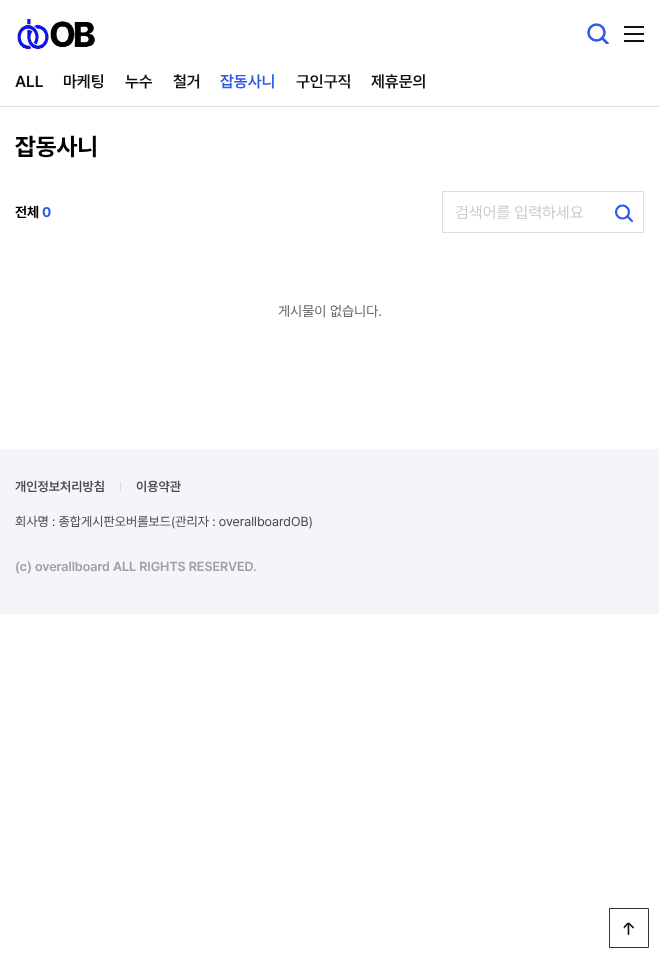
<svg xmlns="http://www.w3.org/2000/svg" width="659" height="958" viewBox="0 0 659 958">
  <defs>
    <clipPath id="clip1"><path d="M587 23h22v21H587z"/></clipPath>
  </defs>
  <rect width="100%" height="100%" fill="#fff"/>
  <path d="M0 106h659v1H0z" fill="#ddd"/>
  <image x="17" y="18" width="78" height="32" href="img/1.png"/>
  <circle cx="596.5" cy="32.5" r="8" fill="none" stroke="#2f58ed" stroke-width="2.6"/>
  <g clip-path="url(#clip1)">
    <path d="M602 38L607.5 43.5" fill="none" stroke="#2f58ed" stroke-width="2.6" stroke-linecap="round" stroke-linejoin="round"/>
  </g>
  <path d="M624 26h20v2H624z" fill="#111"/>
  <path d="M624 33h20v2H624z" fill="#111"/>
  <path d="M624 40h20v2H624z" fill="#111"/>
  <path d="M442.5 191.5h201v41H442.5z" fill="none" stroke="#ddd"/>
  <circle cx="622.5" cy="212" r="6.5" fill="none" stroke="#2f58ed" stroke-width="2.2"/>
  <path d="M627.5 216.5L632 221" fill="none" stroke="#2f58ed" stroke-width="2.2" stroke-linecap="round" stroke-linejoin="round"/>
  <path d="M0 449h659v165H0z" fill="#f4f5f8"/>
  <path d="M120 482h1v10H120z" fill="#ddd"/>
  <path d="M609.5 908.5h39v39H609.5z" fill="none" stroke="#333"/>
  <image x="623" y="922" width="11" height="13" href="img/2.png"/>
  <g font-family="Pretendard" font-size="16" font-weight="600" fill="#111">
    <text x="15" y="87">ALL</text>
    <text x="63" y="87">마케팅</text>
    <text x="125" y="87">누수</text>
    <text x="173" y="87">철거</text>
  </g>
  <text x="220" y="87" font-family="Pretendard" font-size="16" font-weight="600" fill="#2f58ed">잡동사니</text>
  <g font-family="Pretendard" font-size="16" font-weight="600" fill="#111">
    <text x="296" y="87">구인구직</text>
    <text x="371" y="87">제휴문의</text>
  </g>
  <text x="15" y="155" font-family="Pretendard" font-size="24" font-weight="bold" fill="#000">잡동사니</text>
  <text x="15" y="217" font-family="Pretendard" font-size="14" font-weight="bold" fill="#000">전체</text>
  <text x="42" y="217" font-family="Pretendard" font-size="14" font-weight="bold" fill="#2f58ed">0</text>
  <text x="455" y="218" font-family="Pretendard" font-size="16" fill="#ccc">검색어를 입력하세요</text>
  <text x="278" y="316" font-family="Pretendard" font-size="14" fill="#666">게시물이 없습니다.</text>
  <g font-family="Pretendard" font-size="13" font-weight="600" fill="#494a4a">
    <text x="15" y="491">개인정보처리방침</text>
    <text x="136" y="491">이용약관</text>
  </g>
  <text x="15" y="526" font-family="Pretendard" font-size="13" fill="#494a4a">회사명 : 종합게시판오버롤보드(관리자 : overallboardOB)</text>
  <text x="15" y="571" font-family="Pretendard" font-size="13" font-weight="600" fill="#9fa0a1">(c) overallboard ALL RIGHTS RESERVED.</text>
</svg>
